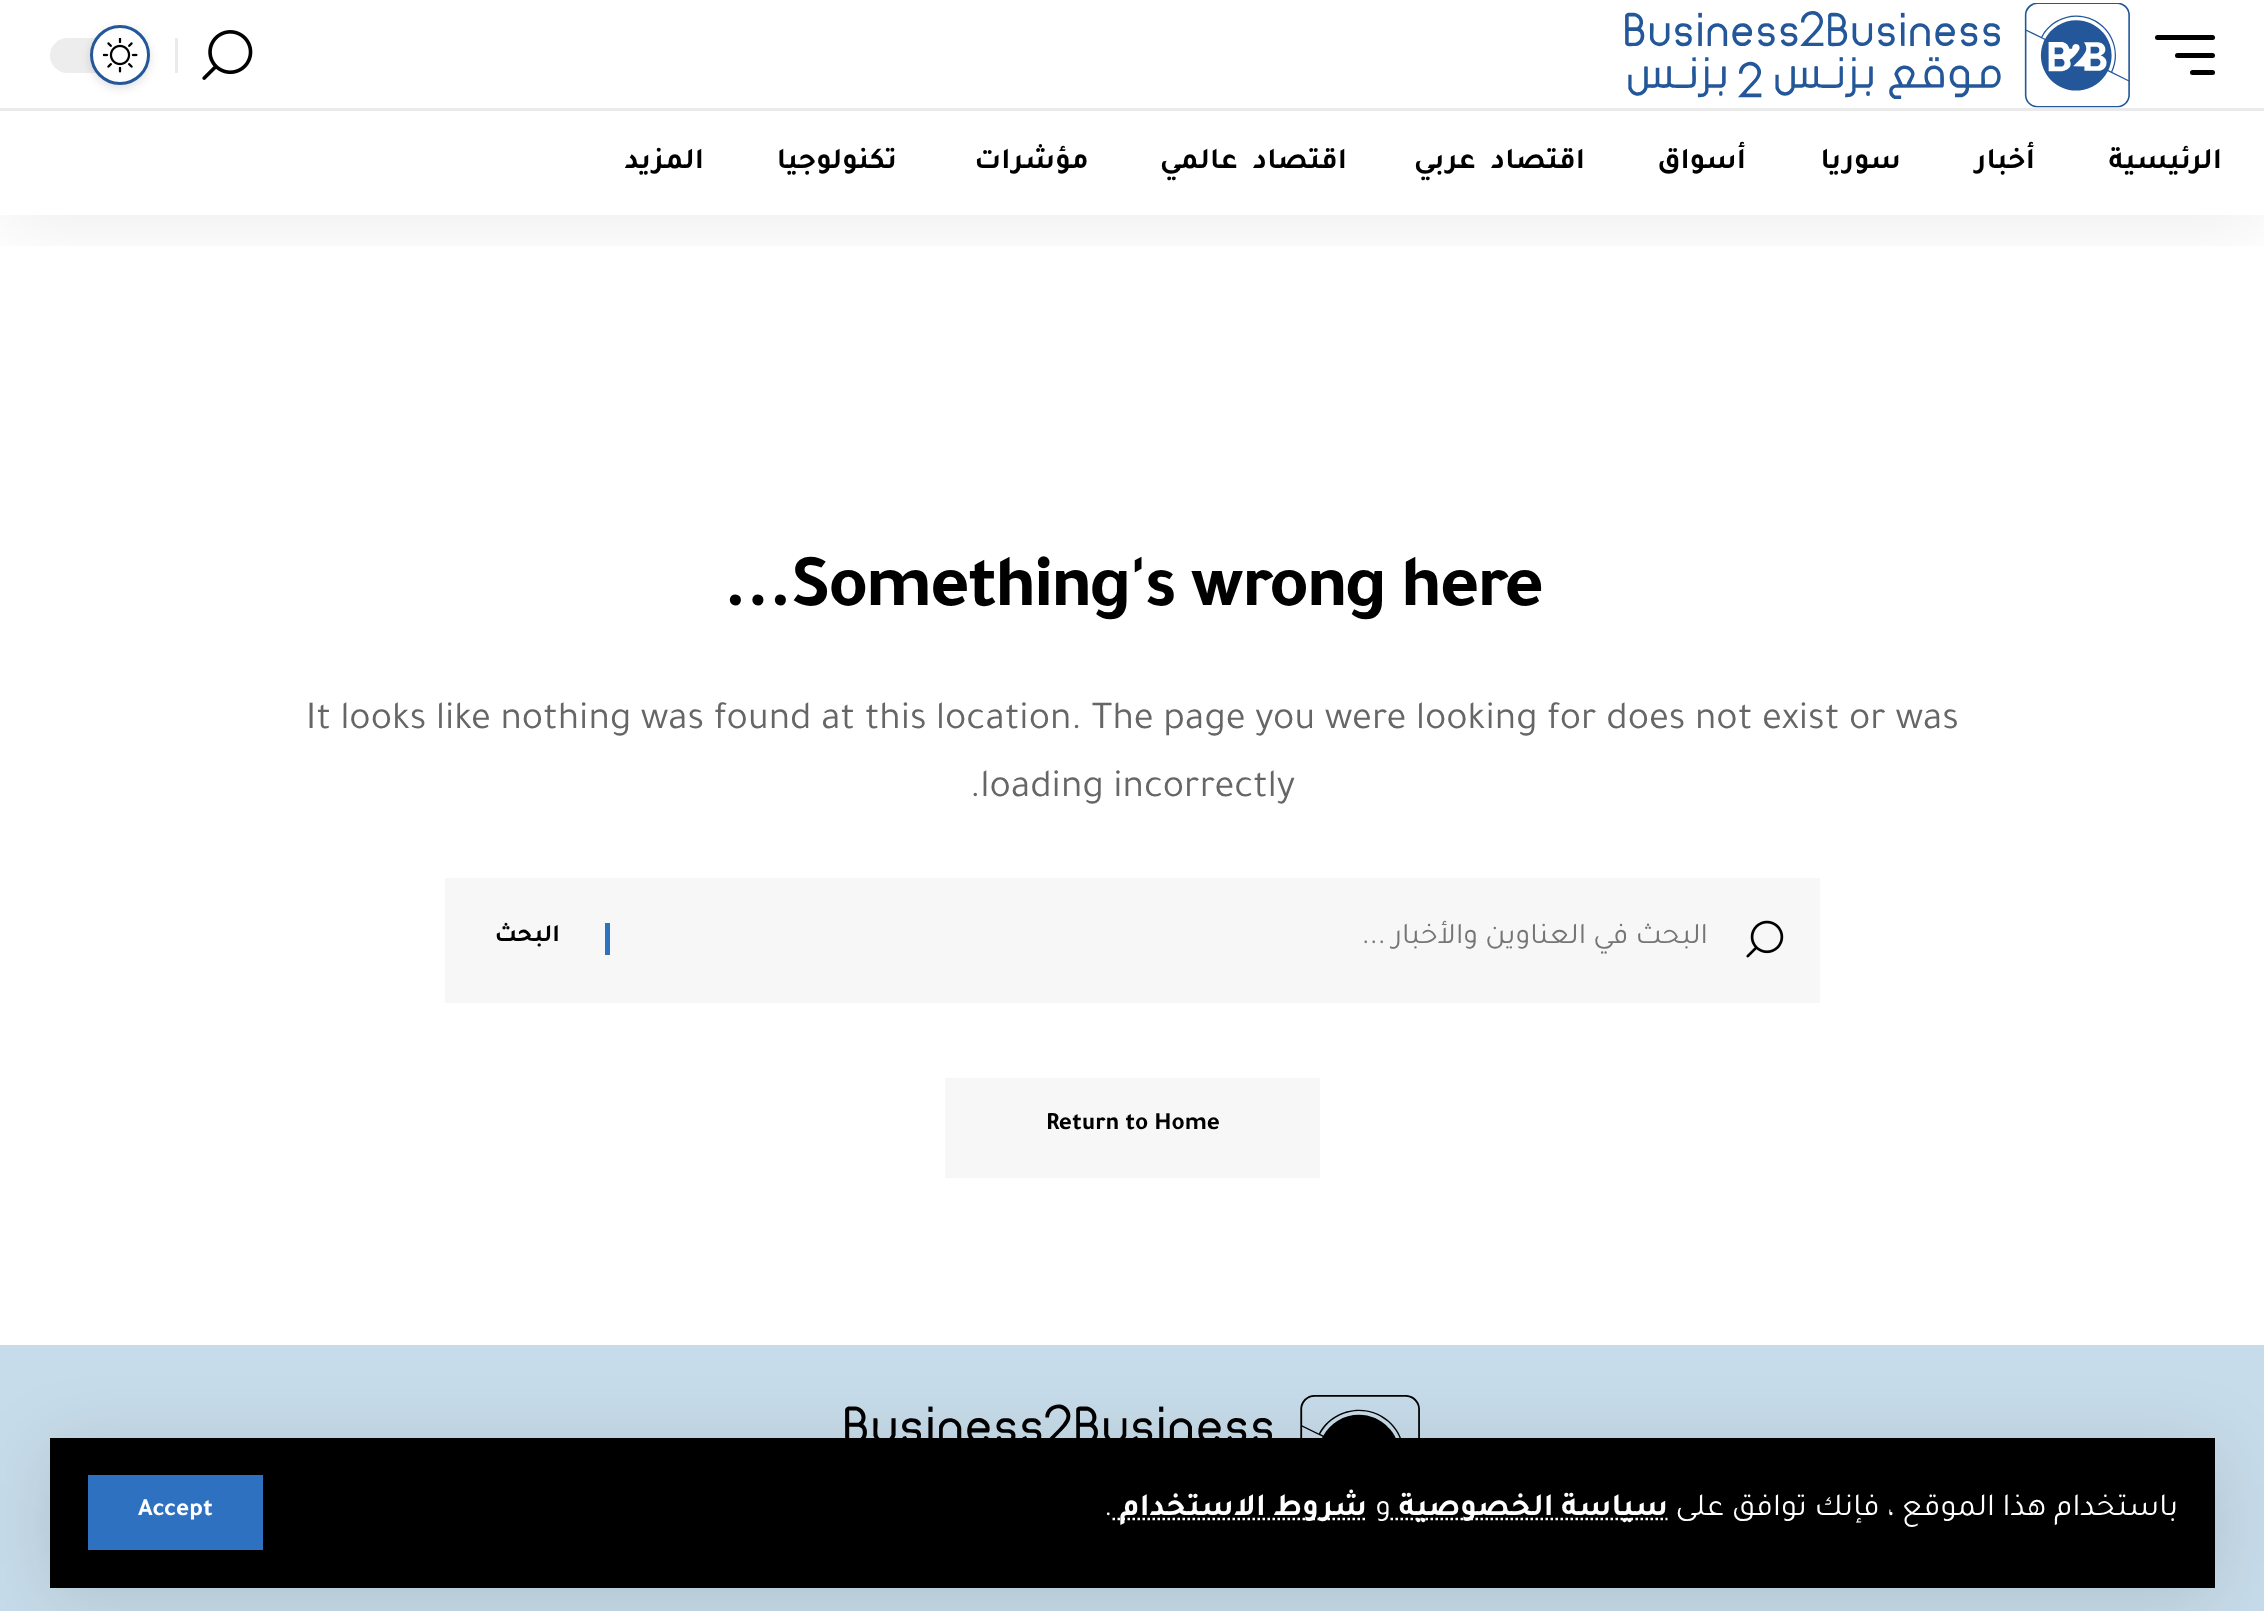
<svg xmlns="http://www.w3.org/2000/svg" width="2264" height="1611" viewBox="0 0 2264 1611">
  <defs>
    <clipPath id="clip1"><path d="M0 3h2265v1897H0z"/></clipPath>
    <clipPath id="clip2"><path d="M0 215h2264v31H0z"/></clipPath>
  </defs>
  <rect width="100%" height="100%" fill="#fff"/>
  <g clip-path="url(#clip1)">
    <g clip-path="url(#clip2)">
      <path d="M0 13h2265v212H0z" fill="#00000012" filter="blur(37.5px)"/>
    </g>
  </g>
  <path d="M175 38h3v35H175z" fill="#eaeaea"/>
  <rect x="50" y="38" width="100" height="35" rx="17.5" fill="#ededed"/>
  <rect x="90" y="28" width="60" height="60" rx="30" fill="#0000001f" filter="blur(5px)"/>
  <circle cx="120" cy="55" r="28.5" fill="#fff" stroke="#235799" stroke-width="3"/>
  <image x="103" y="38" width="35" height="35" href="img/1.png"/>
  <image x="202" y="30" width="51" height="50" href="img/2.png"/>
  <image x="1625" y="3" width="505" height="105" href="img/3.png"/>
  <rect x="2155" y="35" width="60" height="5" rx="2.5" fill="#000"/>
  <rect x="2175" y="53" width="40" height="5" rx="2.5" fill="#000"/>
  <rect x="2190" y="70" width="25" height="5" rx="2.5" fill="#000"/>
  <path d="M0 108h2264v3H0z" fill="#eaeaea"/>
  <path d="M0 1345h2264v266H0z" fill="#c7dcea"/>
  <image x="845" y="1395" width="575" height="43" href="img/5.png"/>
  <path d="M50 1448h2165v150H50z" fill="#0000001f" filter="blur(37.5px)"/>
  <path d="M50 1438h2165v150H50z" fill="#000"/>
  <path d="M88 1475h175v75H88z" fill="#2f71c1"/>
  <path d="M1112.5 1519H1367" fill="none" stroke="#fff" stroke-width="2.5" stroke-dasharray="2.5 2.5"/>
  <path d="M1390.5 1519H1667.5" fill="none" stroke="#fff" stroke-width="2.5" stroke-dasharray="2.5 2.5"/>
  <path d="M445 878h1375v125H445z" fill="#f7f7f7"/>
  <path d="M605 923h5v32H605z" fill="#2f71c1"/>
  <image x="1746" y="920" width="38" height="38" href="img/4.png"/>
  <path d="M945 1078h375v100H945z" fill="#f7f7f7"/>
  <g font-family="Tajawal" font-size="30" font-weight="bold" letter-spacing="-0.75" direction="rtl" fill="#000">
    <text x="704" y="168">المزيد</text>
    <text x="897" y="168">تكنولوجيا</text>
    <text x="1089" y="168">مؤشرات</text>
    <text x="1347" y="168" word-spacing="8">اقتصاد عالمي</text>
    <text x="1585" y="168" word-spacing="8">اقتصاد عربي</text>
    <text x="1746" y="168">أسواق</text>
    <text x="1901" y="168">سوريا</text>
    <text x="2035" y="168">أخبار</text>
    <text x="2222" y="168">الرئيسية</text>
  </g>
  <text x="138" y="1515" font-family="Tajawal" font-size="25" font-weight="bold" fill="#fff">Accept</text>
  <text x="1104" y="1515" font-family="Tajawal" font-size="32" fill="#fff">.</text>
  <text x="1367" y="1515" font-family="Tajawal" font-size="32" font-weight="bold" direction="rtl" fill="#fff">شروط الاستخدام</text>
  <text x="1391" y="1515" font-family="Tajawal" font-size="32" direction="rtl" fill="#fff">و</text>
  <text x="1668" y="1515" font-family="Tajawal" font-size="32" font-weight="bold" direction="rtl" fill="#fff">سياسة الخصوصية</text>
  <text x="2178" y="1515" font-family="Tajawal" font-size="32" direction="rtl" fill="#fff">باستخدام هذا الموقع ، فإنك توافق على</text>
  <text x="723" y="605" font-family="Tajawal" font-size="75" font-weight="bold" letter-spacing="-2.15" fill="#000">...Something's wrong here</text>
  <g font-family="Tajawal" font-size="40" fill="#666">
    <text x="306" y="728">It looks like nothing was found at this location. The page you were looking for does not exist or was</text>
    <text x="970" y="796">.loading incorrectly</text>
  </g>
  <text x="560" y="941" font-family="Tajawal" font-size="25" font-weight="bold" direction="rtl" fill="#000">البحث</text>
  <text x="1708" y="943" font-family="Tajawal" font-size="30" direction="rtl" fill="#757575">البحث في العناوين والأخبار ...</text>
  <text x="1046" y="1129" font-family="Tajawal" font-size="25" font-weight="bold" fill="#000">Return to Home</text>
</svg>
